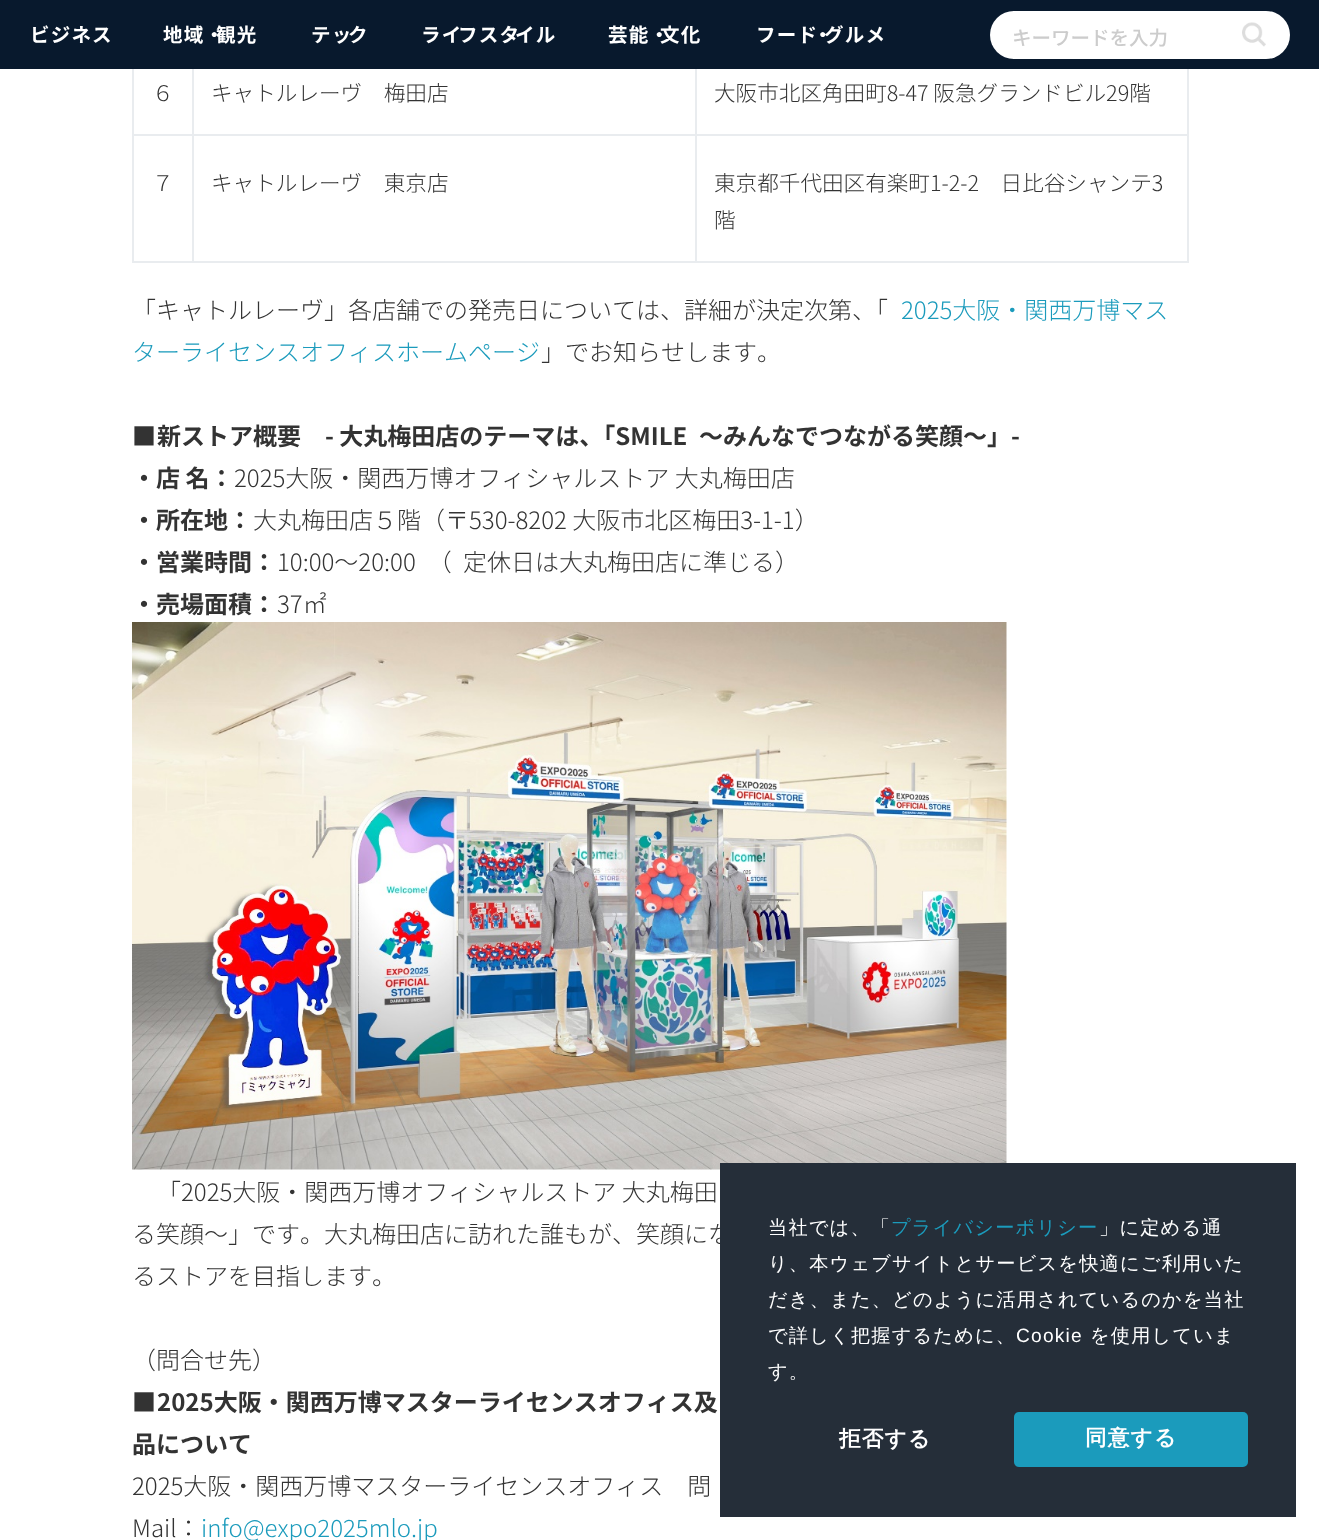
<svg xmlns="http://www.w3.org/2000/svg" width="1319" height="1540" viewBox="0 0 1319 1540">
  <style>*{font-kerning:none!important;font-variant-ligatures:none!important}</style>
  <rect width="100%" height="100%" fill="#fff"/>
  <path d="M0 0h1319v69H0z" fill="#08192d"/>
  <rect x="990" y="11" width="300" height="48" rx="24" fill="#fff"/>
  <path d="M1013 11h1v48H1013z" fill="#fff"/>
  <image x="1242" y="22" width="24" height="25" href="img/1.png"/>
  <path d="M1187 69h2v194H1187z" fill="#e9ecef"/>
  <path d="M132 261h1056v2H132z" fill="#e9ecef"/>
  <path d="M132 69h2v194H132z" fill="#e9ecef"/>
  <path d="M695 134h493v2H695z" fill="#e9ecef"/>
  <path d="M695 134h2v129H695z" fill="#e9ecef"/>
  <path d="M192 134h504v2H192z" fill="#e9ecef"/>
  <path d="M192 134h2v129H192z" fill="#e9ecef"/>
  <path d="M132 134h62v2H132z" fill="#e9ecef"/>
  <path d="M192 69h2v66H192z" fill="#e9ecef"/>
  <path d="M695 69h2v66H695z" fill="#e9ecef"/>
  <image x="132" y="622" width="875" height="548" href="img/2.png"/>
  <g font-family="Noto Sans JP" font-size="19.5" font-weight="bold" letter-spacing="1.2" fill="#fff">
    <text x="30" y="42">ビジネス</text>
    <text x="163" y="42">地域・</text>
    <text x="216" y="42">観光</text>
    <text x="311" y="42">テッ</text>
    <text x="348" y="42">ク</text>
    <text x="421" y="42">ライ</text>
    <text x="458" y="42">フスタ</text>
    <text x="515" y="42">イル</text>
    <text x="608" y="42">芸能・</text>
    <text x="660" y="42">文化</text>
    <text x="756" y="42">フード</text>
    <text x="813" y="42">・</text>
    <text x="824" y="42">グルメ</text>
  </g>
  <text x="1012" y="45" font-family="Noto Sans JP" font-size="19.5" font-weight="500" fill="#ccc">キーワードを入力</text>
  <g font-family="Noto Sans JP" font-size="21.6" font-weight="300" fill="#333">
    <text x="152" y="101">６</text>
    <text x="211" y="101">キャトルレーヴ　梅田店</text>
    <text x="714" y="101">大阪市北区角田町8-47 阪急グランドビル29階</text>
    <text x="152" y="191">７</text>
    <text x="211" y="191">キャトルレーヴ　東京店</text>
    <text x="714" y="191">東京都千代田区有楽町1-2-2　日比谷シャンテ3</text>
    <text x="714" y="228">階</text>
  </g>
  <text x="132" y="319" font-family="Noto Sans JP" font-size="24" font-weight="300" fill="#333">「キャトルレーヴ」各店舗での発売日については、詳細が決定次第、「</text>
  <g font-family="Noto Sans JP" font-size="24" font-weight="300" fill="#1b9bbc">
    <text x="901" y="319">2025大阪・関西万博マス</text>
    <text x="132" y="361">ターライセンスオフィスホームページ</text>
  </g>
  <g font-family="Noto Sans JP" font-size="24" font-weight="300" fill="#333">
    <text x="541" y="361">」でお知らせします。</text>
    <text x="132" y="445">■</text>
  </g>
  <g font-family="Noto Sans JP" font-size="24" font-weight="bold" fill="#333">
    <text x="157" y="445">新ストア概要</text>
    <text x="325" y="445">- 大丸梅田店のテーマは、「SMILE</text>
    <text x="699" y="445">～みんなでつながる笑顔～」-</text>
    <text x="132" y="487">・店 名：</text>
  </g>
  <text x="234" y="487" font-family="Noto Sans JP" font-size="24" font-weight="300" fill="#333">2025大阪・関西万博オフィシャルストア 大丸梅田店</text>
  <text x="132" y="529" font-family="Noto Sans JP" font-size="24" font-weight="bold" fill="#333">・所在地：</text>
  <text x="253" y="529" font-family="Noto Sans JP" font-size="24" font-weight="300" fill="#333">大丸梅田店５階（〒530-8202 大阪市北区梅田3-1-1）</text>
  <text x="132" y="571" font-family="Noto Sans JP" font-size="24" font-weight="bold" fill="#333">・営業時間：</text>
  <text x="277" y="571" font-family="Noto Sans JP" font-size="24" font-weight="300" fill="#333">10:00～20:00　（</text>
  <text x="463" y="571" font-family="Noto Sans JP" font-size="24" font-weight="300" fill="#333">定休日は大丸梅田店に準じる）</text>
  <text x="132" y="613" font-family="Noto Sans JP" font-size="24" font-weight="bold" fill="#333">・売場面積：</text>
  <g font-family="Noto Sans JP" font-size="24" font-weight="300" fill="#333">
    <text x="277" y="613">37㎡</text>
    <text x="157" y="1201">「2025大阪・関西万博オフィシャルストア 大丸梅田</text>
    <text x="132" y="1243">る笑顔～」です。大丸梅田店に訪れた誰もが、笑顔にな</text>
    <text x="132" y="1285">るストアを目指します。</text>
    <text x="132" y="1369">（問合せ先）</text>
    <text x="132" y="1411">■</text>
  </g>
  <g font-family="Noto Sans JP" font-size="24" font-weight="bold" fill="#333">
    <text x="157" y="1411">2025大阪・関西万博マスターライセンスオフィス及</text>
    <text x="132" y="1453">品について</text>
  </g>
  <g font-family="Noto Sans JP" font-size="24" font-weight="300" fill="#333">
    <text x="132" y="1495">2025大阪・関西万博マスターライセンスオフィス　問</text>
    <text x="132" y="1537">Mail：</text>
  </g>
  <text x="201" y="1537" font-family="Noto Sans JP" font-size="24" font-weight="300" fill="#1b9bbc">info@expo2025mlo.jp</text>
  <path d="M720 1163h576v354H720z" fill="#252e39"/>
  <text x="768" y="1234" font-family="WenQuanYi Zen Hei" font-size="19.2" font-weight="500" letter-spacing="1.2" fill="#fff">当社では、「</text>
  <text x="891" y="1234" font-family="WenQuanYi Zen Hei" font-size="19.2" font-weight="500" letter-spacing="1.2" fill="#1b9bbc">プライバシーポリシー</text>
  <g font-family="WenQuanYi Zen Hei" font-size="19.2" font-weight="500" letter-spacing="1.2" fill="#fff">
    <text x="1099" y="1234">」に定める通</text>
    <text x="768" y="1270">り、本ウェブサイトとサービスを快適にご利用いた</text>
    <text x="768" y="1306">だき、また、どのように活用されているのかを当社</text>
    <text x="768" y="1342">で詳しく把握するために、</text>
  </g>
  <text x="1016" y="1342" font-family="Liberation Sans" font-size="19.2" letter-spacing="1.2" fill="#fff">Cookie</text>
  <g font-family="WenQuanYi Zen Hei" font-size="19.2" font-weight="500" letter-spacing="1.2" fill="#fff">
    <text x="1090" y="1342">を使用していま</text>
    <text x="768" y="1378">す。</text>
  </g>
  <text x="839" y="1446" font-family="WenQuanYi Zen Hei" font-size="21.6" font-weight="bold" letter-spacing="1.2" fill="#fff">拒否する</text>
  <rect x="1014" y="1412" width="234" height="55" rx="5" fill="#1b9bbc"/>
  <text x="1085" y="1445" font-family="WenQuanYi Zen Hei" font-size="21.6" font-weight="bold" letter-spacing="1.2" fill="#fff">同意する</text>
</svg>
